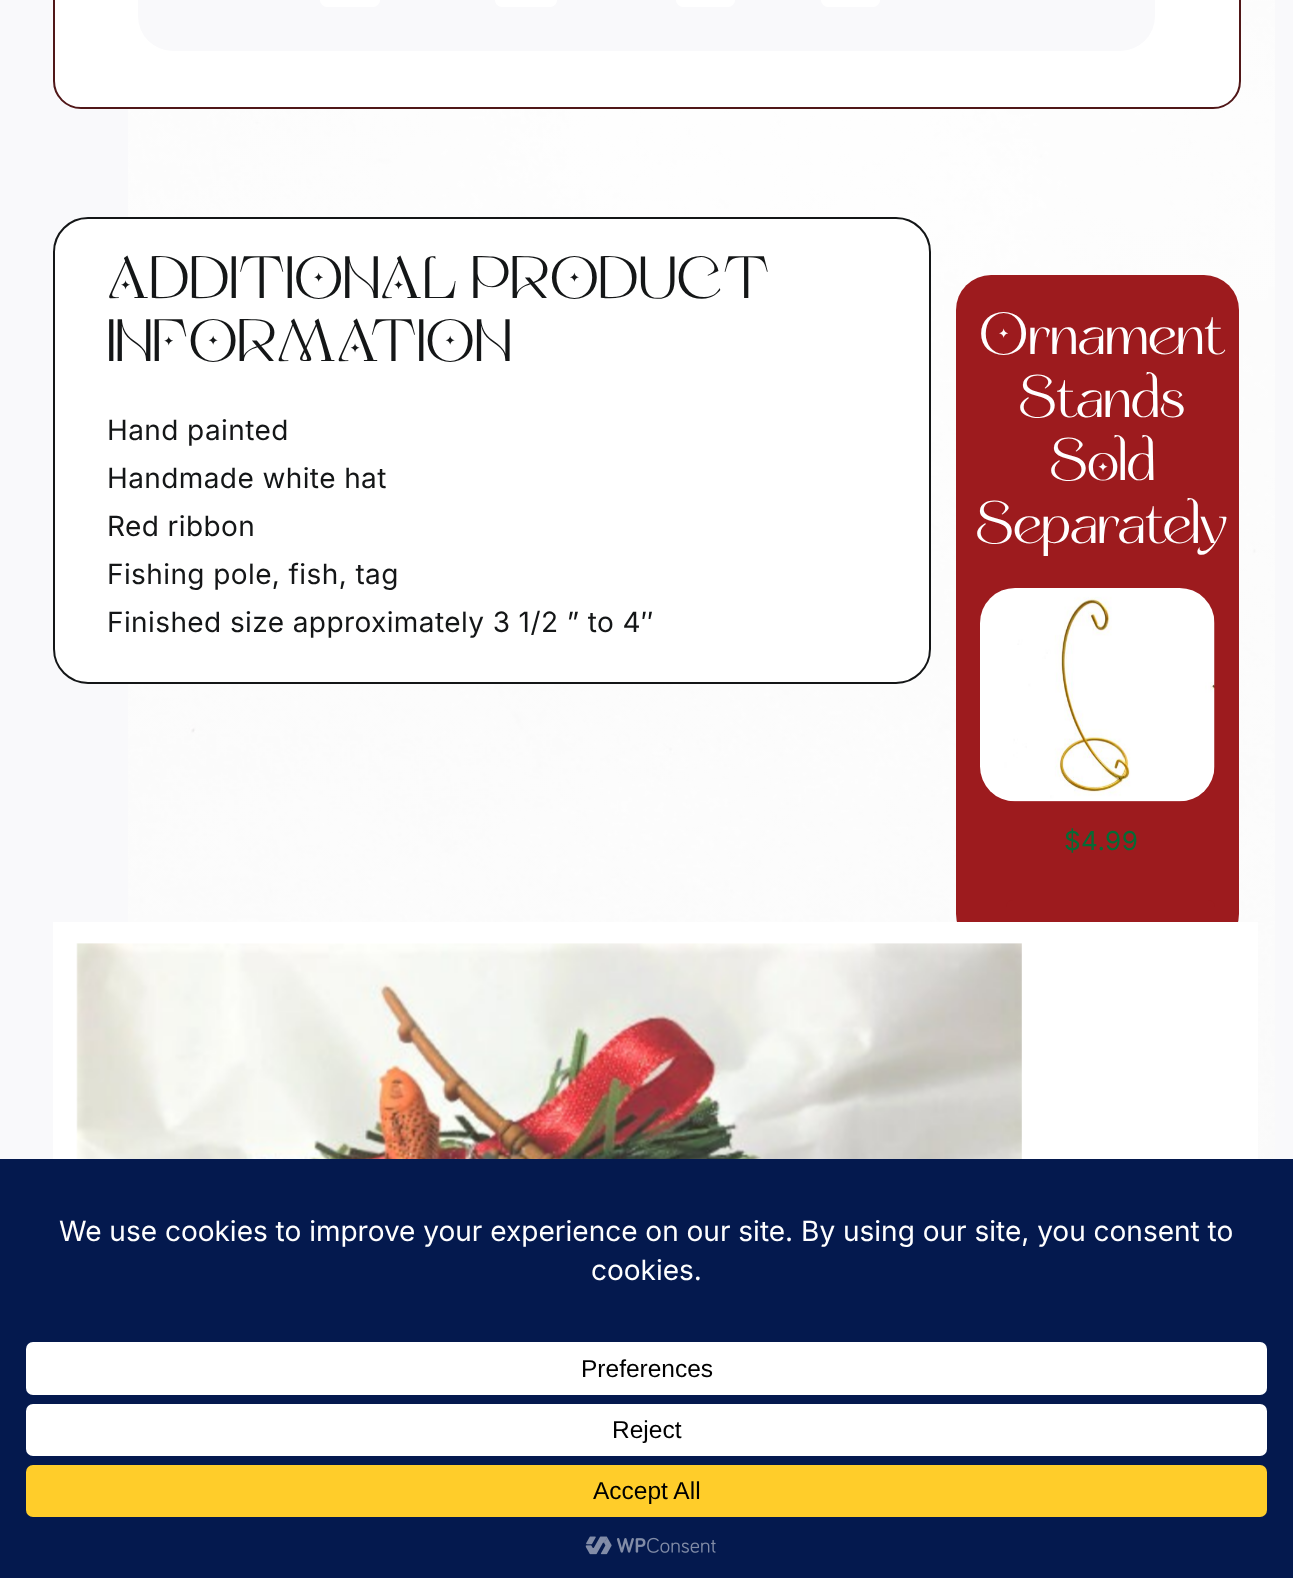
<svg xmlns="http://www.w3.org/2000/svg" width="1293" height="1578" viewBox="0 0 1293 1578">
  <rect width="100%" height="100%" fill="#f9f9fb"/>
  <image x="128" y="0" width="1147" height="1159" href="img/1.png"/>
  <rect x="54" y="-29" width="1186" height="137" rx="27" fill="#fff" stroke="#501718" stroke-width="2"/>
  <rect x="138" y="-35" width="1017" height="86" rx="35" fill="#f9f9fb"/>
  <rect x="320" y="-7" width="60" height="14" rx="7" fill="#fff"/>
  <rect x="495" y="-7" width="62" height="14" rx="7" fill="#fff"/>
  <rect x="676" y="-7" width="59" height="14" rx="7" fill="#fff"/>
  <rect x="821" y="-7" width="59" height="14" rx="7" fill="#fff"/>
  <rect x="54" y="218" width="876" height="465" rx="34" fill="#fff" stroke="#141617" stroke-width="2"/>
  <rect x="956" y="275" width="283" height="674" rx="35" fill="#9d1b1e"/>
  <image x="980" y="588" width="235" height="214" href="img/2.png"/>
  <rect x="1006" y="900" width="209" height="49" rx="7" fill="#9d1b1e"/>
  <path d="M53 922h1205v237H53z" fill="#fff"/>
  <image x="76" y="943" width="946" height="216" href="img/3.png"/>
  <path d="M0 1159h1293v419H0z" fill="#04194e"/>
  <rect x="26" y="1342" width="1241" height="53" rx="7" fill="#fff"/>
  <rect x="26" y="1404" width="1241" height="52" rx="7" fill="#fff"/>
  <rect x="26" y="1465" width="1241" height="52" rx="7" fill="#ffcd2a"/>
  <image x="585" y="1536" width="131" height="19" href="img/4.png"/>
  <g font-family="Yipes" font-size="52.5" fill="#141617">
    <text x="107" y="298">ADDITIONAL PRODUCT</text>
    <text x="107" y="361">INFORMATION</text>
  </g>
  <g font-family="Inter" font-size="28" letter-spacing="0.4" fill="#141617">
    <text x="107" y="440">Hand painted</text>
    <text x="107" y="488">Handmade white hat</text>
    <text x="107" y="536">Red ribbon</text>
    <text x="107" y="584">Fishing pole, fish, tag</text>
    <text x="107" y="632">Finished size approximately 3 1/2 ” to 4″</text>
  </g>
  <g font-family="Yipes" font-size="52.5" fill="#fff">
    <text x="979" y="354">Ornament</text>
    <text x="1018" y="417">Stands</text>
    <text x="1049" y="480">Sold</text>
    <text x="975" y="543">Separately</text>
  </g>
  <text x="1064" y="850" font-family="Inter" font-size="26" letter-spacing="0.4" fill="#046b35">$4.99</text>
  <g font-family="Inter" font-size="28" fill="#fff">
    <text x="59" y="1241">We use cookies to improve your experience on our site. By using our site, you consent to</text>
    <text x="591" y="1280">cookies.</text>
  </g>
  <g font-family="Liberation Sans" font-size="24.5" fill="#000">
    <text x="581" y="1377">Preferences</text>
    <text x="612" y="1438">Reject</text>
    <text x="593" y="1499">Accept All</text>
  </g>
</svg>
